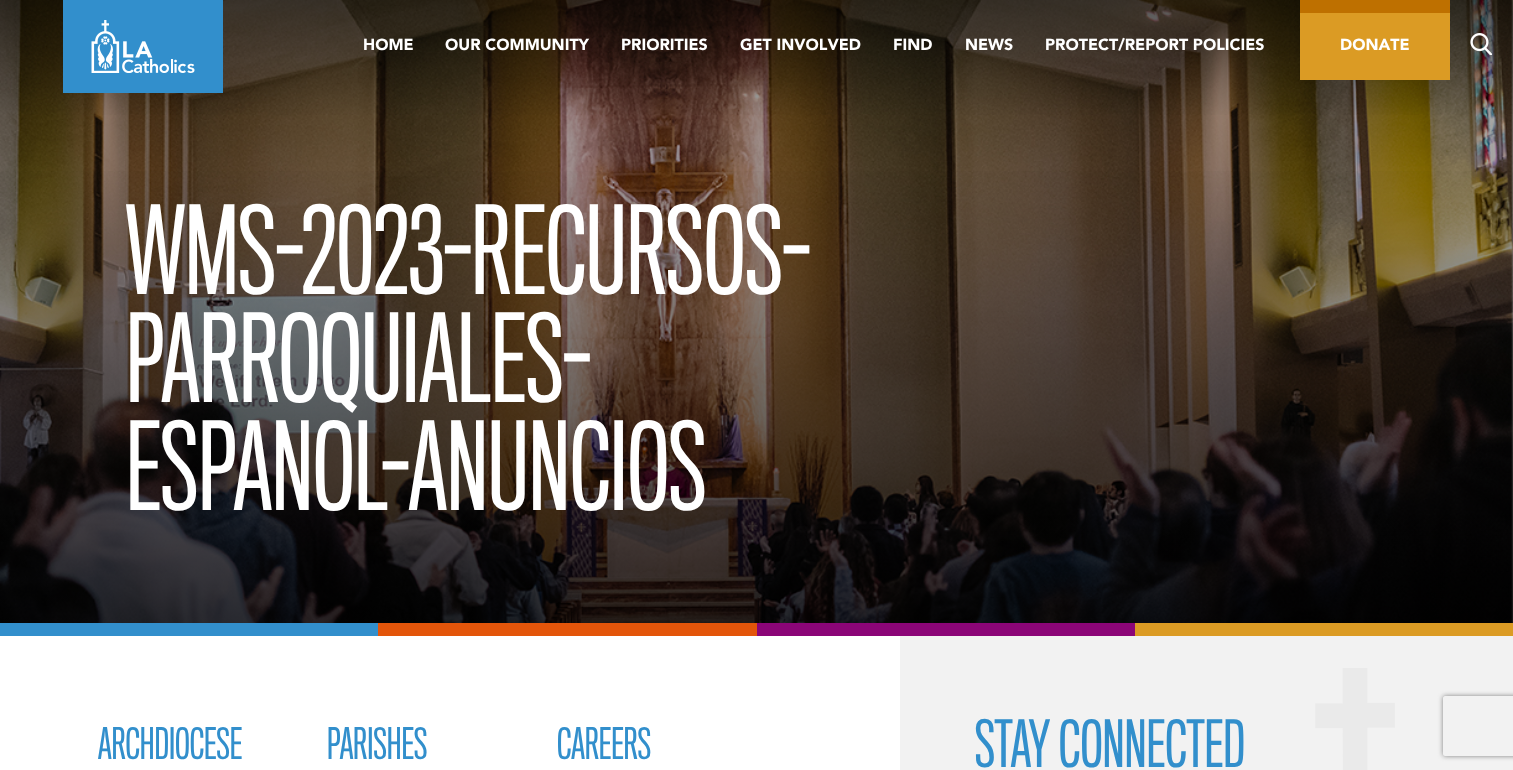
<svg xmlns="http://www.w3.org/2000/svg" width="1513" height="770" viewBox="0 0 1513 770">
  <defs>
    <linearGradient id="g1" gradientUnits="userSpaceOnUse" x1="757" y1="0" x2="757" y2="120"><stop offset="0" stop-color="#000" stop-opacity="0.5"/><stop offset="1" stop-color="#000" stop-opacity="0"/></linearGradient>
    <linearGradient id="g2" gradientUnits="userSpaceOnUse" x1="757" y1="156" x2="757" y2="623"><stop offset="0" stop-color="#000" stop-opacity="0"/><stop offset="1" stop-color="#000" stop-opacity="0.65"/></linearGradient>
    <clipPath id="clip1"><path d="M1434 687H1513V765H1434ZM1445 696H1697C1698 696 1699 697 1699 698V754C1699 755 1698 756 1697 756H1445C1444 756 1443 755 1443 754V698C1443 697 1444 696 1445 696Z" clip-rule="evenodd"/></clipPath>
  </defs>
  <rect width="100%" height="100%" fill="#fff"/>
  <path d="M0 0h1513v623H0z" fill="#000"/>
  <image x="0" y="0" width="1513" height="623" href="img/3.png"/>
  <path d="M0 0h1513v115H0z" fill="url(#g1)"/>
  <path d="M63 0h160v93H63z" fill="#328fcc"/>
  <image x="91" y="20" width="104" height="53" href="img/1.png"/>
  <path d="M1300 13h150v67H1300z" fill="#db9b24"/>
  <path d="M1300 0h150v13H1300z" fill="#be7000"/>
  <image x="1470" y="33" width="23" height="22" href="img/2.png"/>
  <path d="M0 171h1513v452H0z" fill="url(#g2)"/>
  <path d="M0 623h378v13H0z" fill="#328fcc"/>
  <path d="M1135 623h378v13H1135z" fill="#db9b24"/>
  <path d="M378 623h379v13H378z" fill="#e3550a"/>
  <path d="M757 623h378v13H757z" fill="#8b0577"/>
  <path d="M900 636h613v134H900z" fill="#f2f2f2"/>
  <image x="1315" y="668" width="80" height="102" href="img/4.png"/>
  <g clip-path="url(#clip1)">
    <rect x="1443" y="696" width="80" height="60" rx="2" fill="#808080" filter="blur(2.5px)"/>
  </g>
  <g font-family="Avenir" font-size="16" fill="#fff">
    <text x="363" y="50">HOME</text>
    <text x="445" y="50">OUR COMMUNITY</text>
    <text x="621" y="50">PRIORITIES</text>
    <text x="740" y="50">GET INVOLVED</text>
    <text x="893" y="50">FIND</text>
    <text x="965" y="50">NEWS</text>
    <text x="1045" y="50">PROTECT/REPORT POLICIES</text>
    <text x="1340" y="50">DONATE</text>
  </g>
  <g font-family="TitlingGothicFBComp" font-size="112.5" fill="#fff">
    <text x="126" y="294">WMS-2023-RECURSOS-</text>
    <text x="126" y="402">PARROQUIALES-</text>
    <text x="126" y="510">ESPANOL-ANUNCIOS</text>
  </g>
  <g font-family="TitlingGothicFBComp" font-size="40" fill="#328fcc">
    <text x="98" y="759">ARCHDIOCESE</text>
    <text x="327" y="759">PARISHES</text>
    <text x="557" y="759">CAREERS</text>
  </g>
  <text x="975" y="767" font-family="TitlingGothicFBComp" font-size="60" fill="#328fcc">STAY CONNECTED</text>
</svg>
